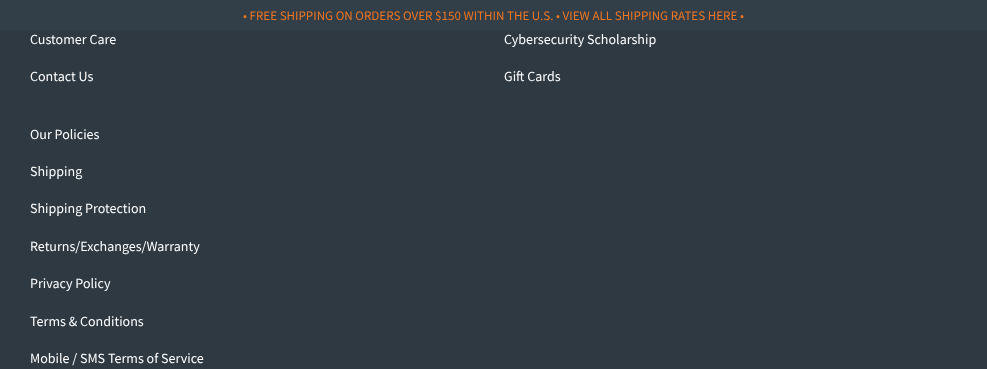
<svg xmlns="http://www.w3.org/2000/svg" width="987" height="369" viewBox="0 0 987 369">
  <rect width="100%" height="100%" fill="#2e3942"/>
  <path d="M0 0h987v30H0z" fill="#323e48"/>
  <text x="243" y="20" font-family="Source Sans Pro" font-size="13" fill="#ee7623">• FREE SHIPPING ON ORDERS OVER $150 WITHIN THE U.S. • VIEW ALL SHIPPING RATES HERE •</text>
  <g font-family="Source Sans Pro" font-size="14" fill="#fff">
    <text x="30" y="44">Customer Care</text>
    <text x="30" y="81">Contact Us</text>
    <text x="504" y="44">Cybersecurity Scholarship</text>
    <text x="504" y="81">Gift Cards</text>
    <text x="30" y="139">Our Policies</text>
    <text x="30" y="176">Shipping</text>
    <text x="30" y="213">Shipping Protection</text>
    <text x="30" y="251">Returns/Exchanges/Warranty</text>
    <text x="30" y="288">Privacy Policy</text>
    <text x="30" y="326">Terms &amp; Conditions</text>
    <text x="30" y="363">Mobile / SMS Terms of Service</text>
  </g>
</svg>
